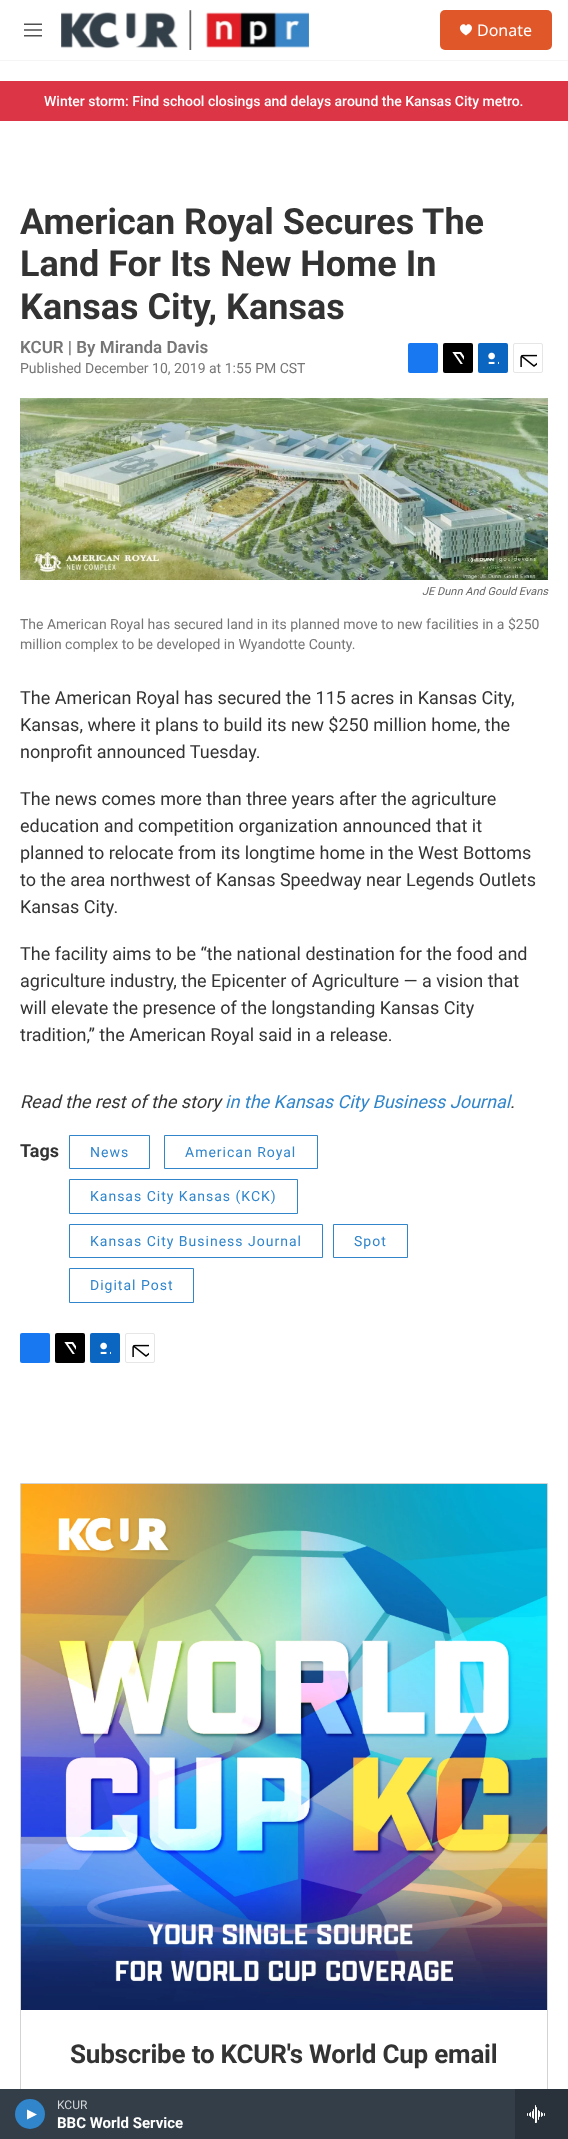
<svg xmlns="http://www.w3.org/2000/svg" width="568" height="2139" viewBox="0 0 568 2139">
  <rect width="100%" height="100%" fill="#fff"/>
  <path d="M0 60h568v1H0z" fill="#f5f5f5"/>
  <image x="24" y="23" width="18" height="14" href="img/1.png"/>
  <image x="61" y="10" width="248" height="40" href="img/2.png"/>
  <rect x="440" y="10" width="112" height="40" rx="5" fill="#e0582a"/>
  <path d="M466 26C464 21 453.5 28 466 35.5C478.5 28 468 21 466 26Z" fill="#fff"/>
  <path d="M20.5 1483.5h527v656H20.5z" fill="none" stroke="#d3d3d3"/>
  <path d="M0 2089h515v50H0z" fill="#333e48"/>
  <circle cx="30" cy="2114" r="15" fill="#3085cb"/>
  <path d="M27 2109.5L37 2114.5L27 2119.5Z" fill="#fff"/>
  <path d="M515 2089h53v50H515z" fill="#29323a"/>
  <image x="527" y="2105" width="18" height="18" href="img/3.png"/>
  <path d="M0 81h568v40H0z" fill="#dc3545"/>
  <rect x="408" y="343" width="30" height="30" rx="2" fill="#1778f2"/>
  <rect x="443" y="343" width="30" height="30" rx="2" fill="#000"/>
  <image x="452" y="352" width="12" height="12" href="img/4.png"/>
  <rect x="478" y="343" width="30" height="30" rx="2" fill="#0a66c1"/>
  <image x="488" y="352" width="11" height="12" href="img/5.png"/>
  <rect x="513.5" y="343.5" width="29" height="29" rx="1.5" fill="none" stroke="#e6e6e6"/>
  <image x="520" y="354" width="17" height="13" href="img/6.png"/>
  <image x="20" y="398" width="528" height="182" href="img/7.png"/>
  <path d="M69.5 1135.5h80v33H69.5z" fill="none" stroke="#3085cb"/>
  <path d="M164.5 1135.5h153v33H164.5z" fill="none" stroke="#3085cb"/>
  <path d="M69.5 1179.5h228v34H69.5z" fill="none" stroke="#3085cb"/>
  <path d="M69.5 1224.5h253v33H69.5z" fill="none" stroke="#3085cb"/>
  <path d="M333.5 1224.5h74v33H333.5z" fill="none" stroke="#3085cb"/>
  <path d="M69.5 1268.5h124v34H69.5z" fill="none" stroke="#3085cb"/>
  <rect x="20" y="1333" width="30" height="30" rx="2" fill="#1778f2"/>
  <rect x="55" y="1333" width="30" height="30" rx="2" fill="#000"/>
  <image x="64" y="1342" width="12" height="12" href="img/4.png"/>
  <rect x="90" y="1333" width="30" height="30" rx="2" fill="#0a66c1"/>
  <image x="100" y="1342" width="11" height="12" href="img/5.png"/>
  <rect x="125.5" y="1333.5" width="29" height="29" rx="1.5" fill="none" stroke="#e6e6e6"/>
  <image x="132" y="1344" width="17" height="13" href="img/6.png"/>
  <image x="21" y="1484" width="526" height="526" href="img/8.png"/>
  <text x="477" y="36" font-family="Noto Sans" font-size="16" fill="#fff">Donate</text>
  <text x="57" y="2109" font-family="'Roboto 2'" font-size="12" fill="#d6d8da">KCUR</text>
  <text x="57" y="2128" font-family="'Roboto 2'" font-size="15" font-weight="bold" fill="#fff">BBC World Service</text>
  <text x="44" y="106" font-family="Roboto" font-size="14" font-weight="500" fill="#fff">Winter storm: Find school closings and delays around the Kansas City metro.</text>
  <g font-family="Roboto" font-size="36" font-weight="bold" fill="#333">
    <text x="20" y="234">American Royal Secures The</text>
    <text x="20" y="276">Land For Its New Home In</text>
    <text x="20" y="319">Kansas City, Kansas</text>
  </g>
  <text x="20" y="353" font-family="Roboto" font-size="17" font-weight="600" fill="#767676">KCUR | By Miranda Davis</text>
  <text x="20" y="373" font-family="Roboto" font-size="14" fill="#767676">Published December 10, 2019 at 1:55 PM CST</text>
  <text x="422" y="595" font-family="Roboto" font-size="11" font-style="italic" fill="#666">JE Dunn And Gould Evans</text>
  <g font-family="Roboto" font-size="14" fill="#767676">
    <text x="20" y="629">The American Royal has secured land in its planned move to new facilities in a $250</text>
    <text x="20" y="649">million complex to be developed in Wyandotte County.</text>
  </g>
  <g font-family="'Roboto 2'" font-size="18" fill="#333">
    <text x="20" y="704">The American Royal has secured the 115 acres in Kansas City,</text>
    <text x="20" y="731">Kansas, where it plans to build its new $250 million home, the</text>
    <text x="20" y="758">nonprofit announced Tuesday.</text>
    <text x="20" y="805">The news comes more than three years after the agriculture</text>
    <text x="20" y="832">education and competition organization announced that it</text>
    <text x="20" y="859">planned to relocate from its longtime home in the West Bottoms</text>
    <text x="20" y="886">to the area northwest of Kansas Speedway near Legends Outlets</text>
    <text x="20" y="913">Kansas City.</text>
    <text x="20" y="960">The facility aims to be “the national destination for the food and</text>
    <text x="20" y="987">agriculture industry, the Epicenter of Agriculture — a vision that</text>
    <text x="20" y="1014">will elevate the presence of the longstanding Kansas City</text>
    <text x="20" y="1041">tradition,” the American Royal said in a release.</text>
  </g>
  <text x="20" y="1108" font-family="'Roboto 2'" font-size="18" font-style="italic" fill="#333">Read the rest of the story</text>
  <text x="225" y="1108" font-family="'Roboto 2'" font-size="18" font-style="italic" fill="#3085cb">in the Kansas City Business Journal</text>
  <text x="510" y="1108" font-family="'Roboto 2'" font-size="18" font-style="italic" fill="#333">.</text>
  <text x="20" y="1157" font-family="Roboto" font-size="18" font-weight="bold" fill="#333">Tags</text>
  <g font-family="'Roboto 2'" font-size="14" letter-spacing="1" fill="#3085cb">
    <text x="90" y="1157">News</text>
    <text x="185" y="1157">American Royal</text>
    <text x="90" y="1201">Kansas City Kansas (KCK)</text>
    <text x="90" y="1246">Kansas City Business Journal</text>
    <text x="354" y="1246">Spot</text>
    <text x="90" y="1290">Digital Post</text>
  </g>
  <text x="70" y="2063" font-family="'Roboto 2'" font-size="26" font-weight="bold" letter-spacing="-0.2" fill="#333">Subscribe to KCUR's World Cup email</text>
</svg>
